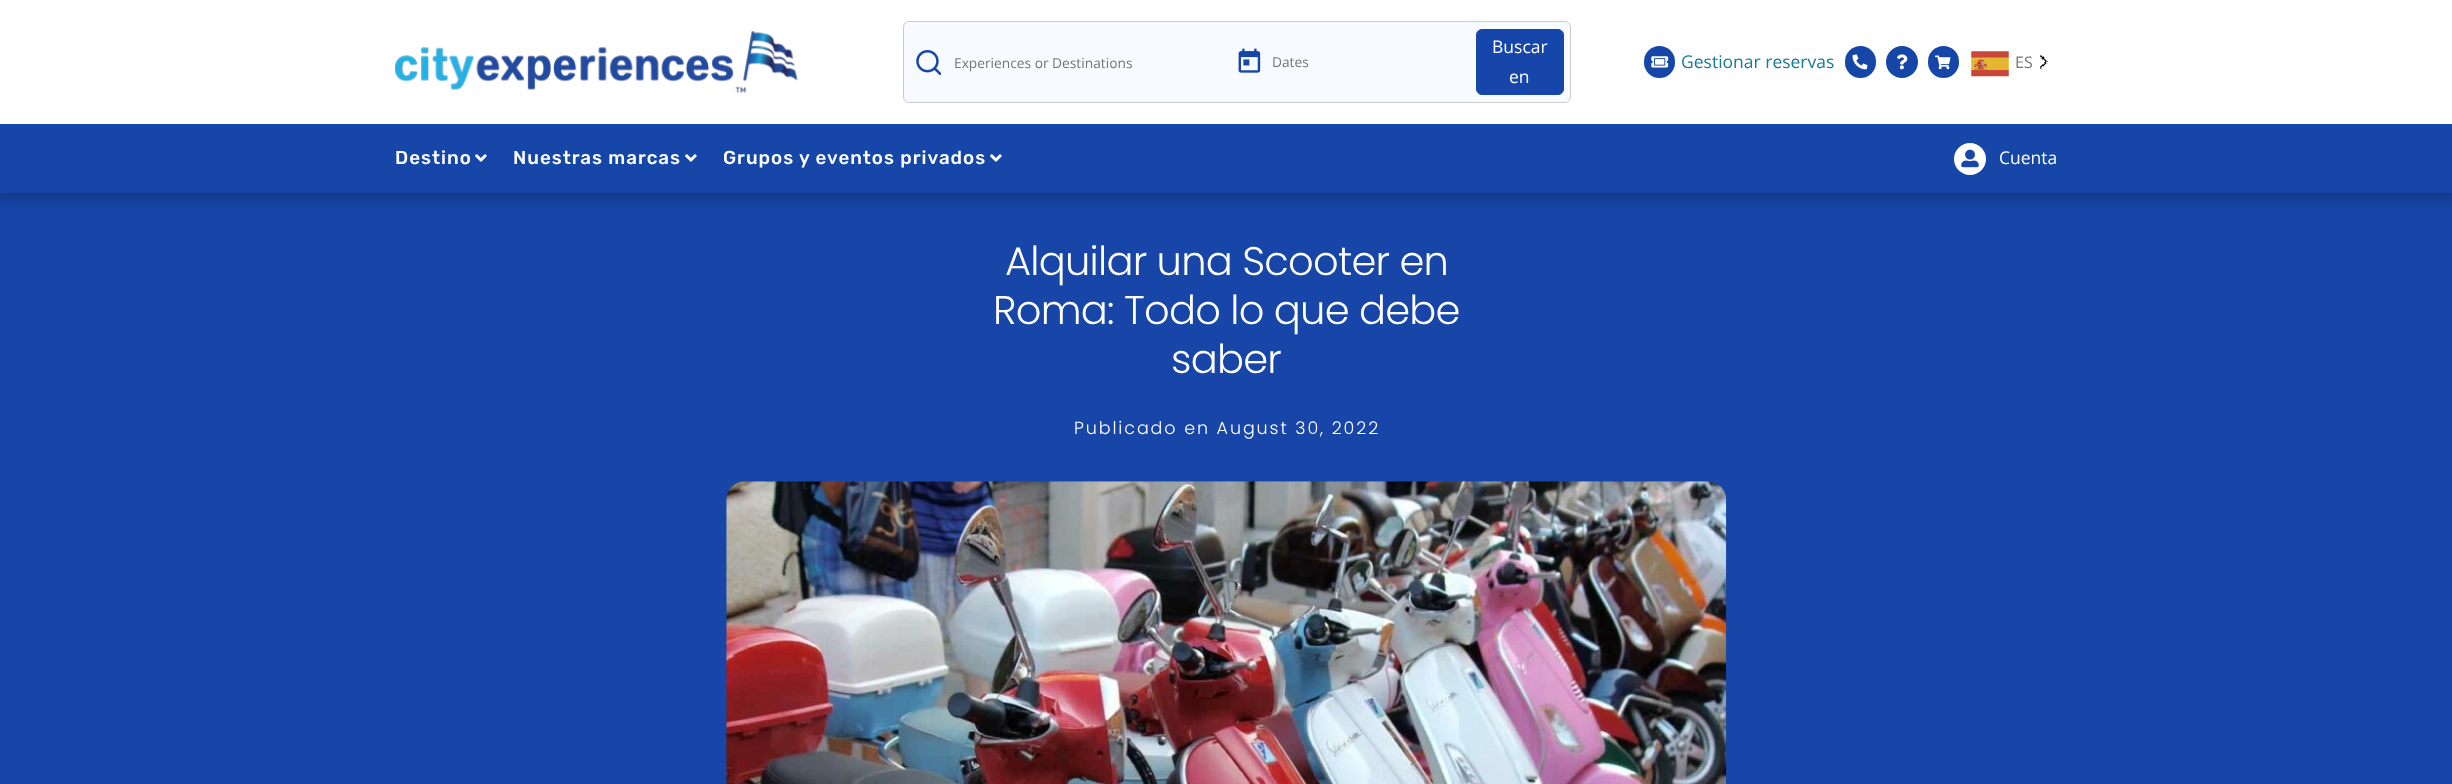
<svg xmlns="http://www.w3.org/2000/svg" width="2452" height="784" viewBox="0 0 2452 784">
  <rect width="100%" height="100%" fill="#1746a8"/>
  <path d="M-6 -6h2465v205H-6z" fill="#00000033" filter="blur(6px)"/>
  <path d="M0 0h2452v124H0z" fill="#fff"/>
  <image x="395" y="31" width="403" height="62" href="img/1.png"/>
  <rect x="903.5" y="21.5" width="667" height="81" rx="5.5" fill="#f7faff" stroke="#ccc"/>
  <image x="916" y="50" width="25" height="25" href="img/2.png"/>
  <image x="1238" y="48" width="23" height="25" href="img/3.png"/>
  <rect x="1476.5" y="29.5" width="87" height="65" rx="5.5" fill="#1646aa" stroke="#1646aa"/>
  <rect x="1644" y="46" width="31" height="32" rx="15.5" fill="#1646a8"/>
  <image x="1651" y="56" width="18" height="12" href="img/4.png"/>
  <rect x="1845" y="46" width="31" height="32" rx="15.5" fill="#1646a8"/>
  <image x="1852" y="54" width="16" height="16" href="img/5.png"/>
  <circle cx="1902" cy="62" r="16" fill="#1646a8"/>
  <image x="1897" y="54" width="11" height="16" href="img/6.png"/>
  <rect x="1928" y="46" width="31" height="32" rx="15.5" fill="#1646a8"/>
  <image x="1935" y="55" width="16" height="15" href="img/7.png"/>
  <image x="1971" y="51" width="38" height="26" href="img/8.png"/>
  <image x="2040" y="55" width="8" height="14" href="img/9.png"/>
  <path d="M0 124h2452v69H0z" fill="#1646a8"/>
  <image x="475" y="154" width="12" height="8" href="img/10.png"/>
  <image x="685" y="154" width="12" height="8" href="img/10.png"/>
  <image x="990" y="154" width="12" height="8" href="img/10.png"/>
  <circle cx="1970" cy="159" r="16" fill="#fff"/>
  <image x="1961" y="149" width="18" height="19" href="img/11.png"/>
  <image x="726" y="481" width="1001" height="303" href="img/12.png"/>
  <g font-family="Open Sans" font-size="13.75" fill="#757575">
    <text x="954" y="68">Experiences or Destinations</text>
    <text x="1272" y="67">Dates</text>
  </g>
  <g font-family="Open Sans" font-size="17.5" fill="#fff">
    <text x="1492" y="53">Buscar</text>
    <text x="1509" y="83">en</text>
  </g>
  <text x="1681" y="68" font-family="Open Sans" font-size="17.5" fill="#177998">Gestionar reservas</text>
  <text x="2015" y="68" font-family="Open Sans" font-size="16" fill="#757575">ES</text>
  <g font-family="Rubik" font-size="18.75" font-weight="500" letter-spacing="1" fill="#fff">
    <text x="395" y="164">Destino</text>
    <text x="513" y="164">Nuestras marcas</text>
    <text x="723" y="164">Grupos y eventos privados</text>
  </g>
  <text x="1999" y="164" font-family="Open Sans" font-size="17.5" fill="#fff">Cuenta</text>
  <g font-family="Poppins" font-size="40" font-weight="300" letter-spacing="-0.75" fill="#fff">
    <text x="1005" y="275">Alquilar una Scooter en</text>
    <text x="993" y="324">Roma: Todo lo que debe</text>
    <text x="1171" y="373">saber</text>
  </g>
  <text x="1074" y="434" font-family="Poppins" font-size="17.5" font-weight="300" letter-spacing="1.9" fill="#fff">Publicado en August 30, 2022</text>
</svg>
